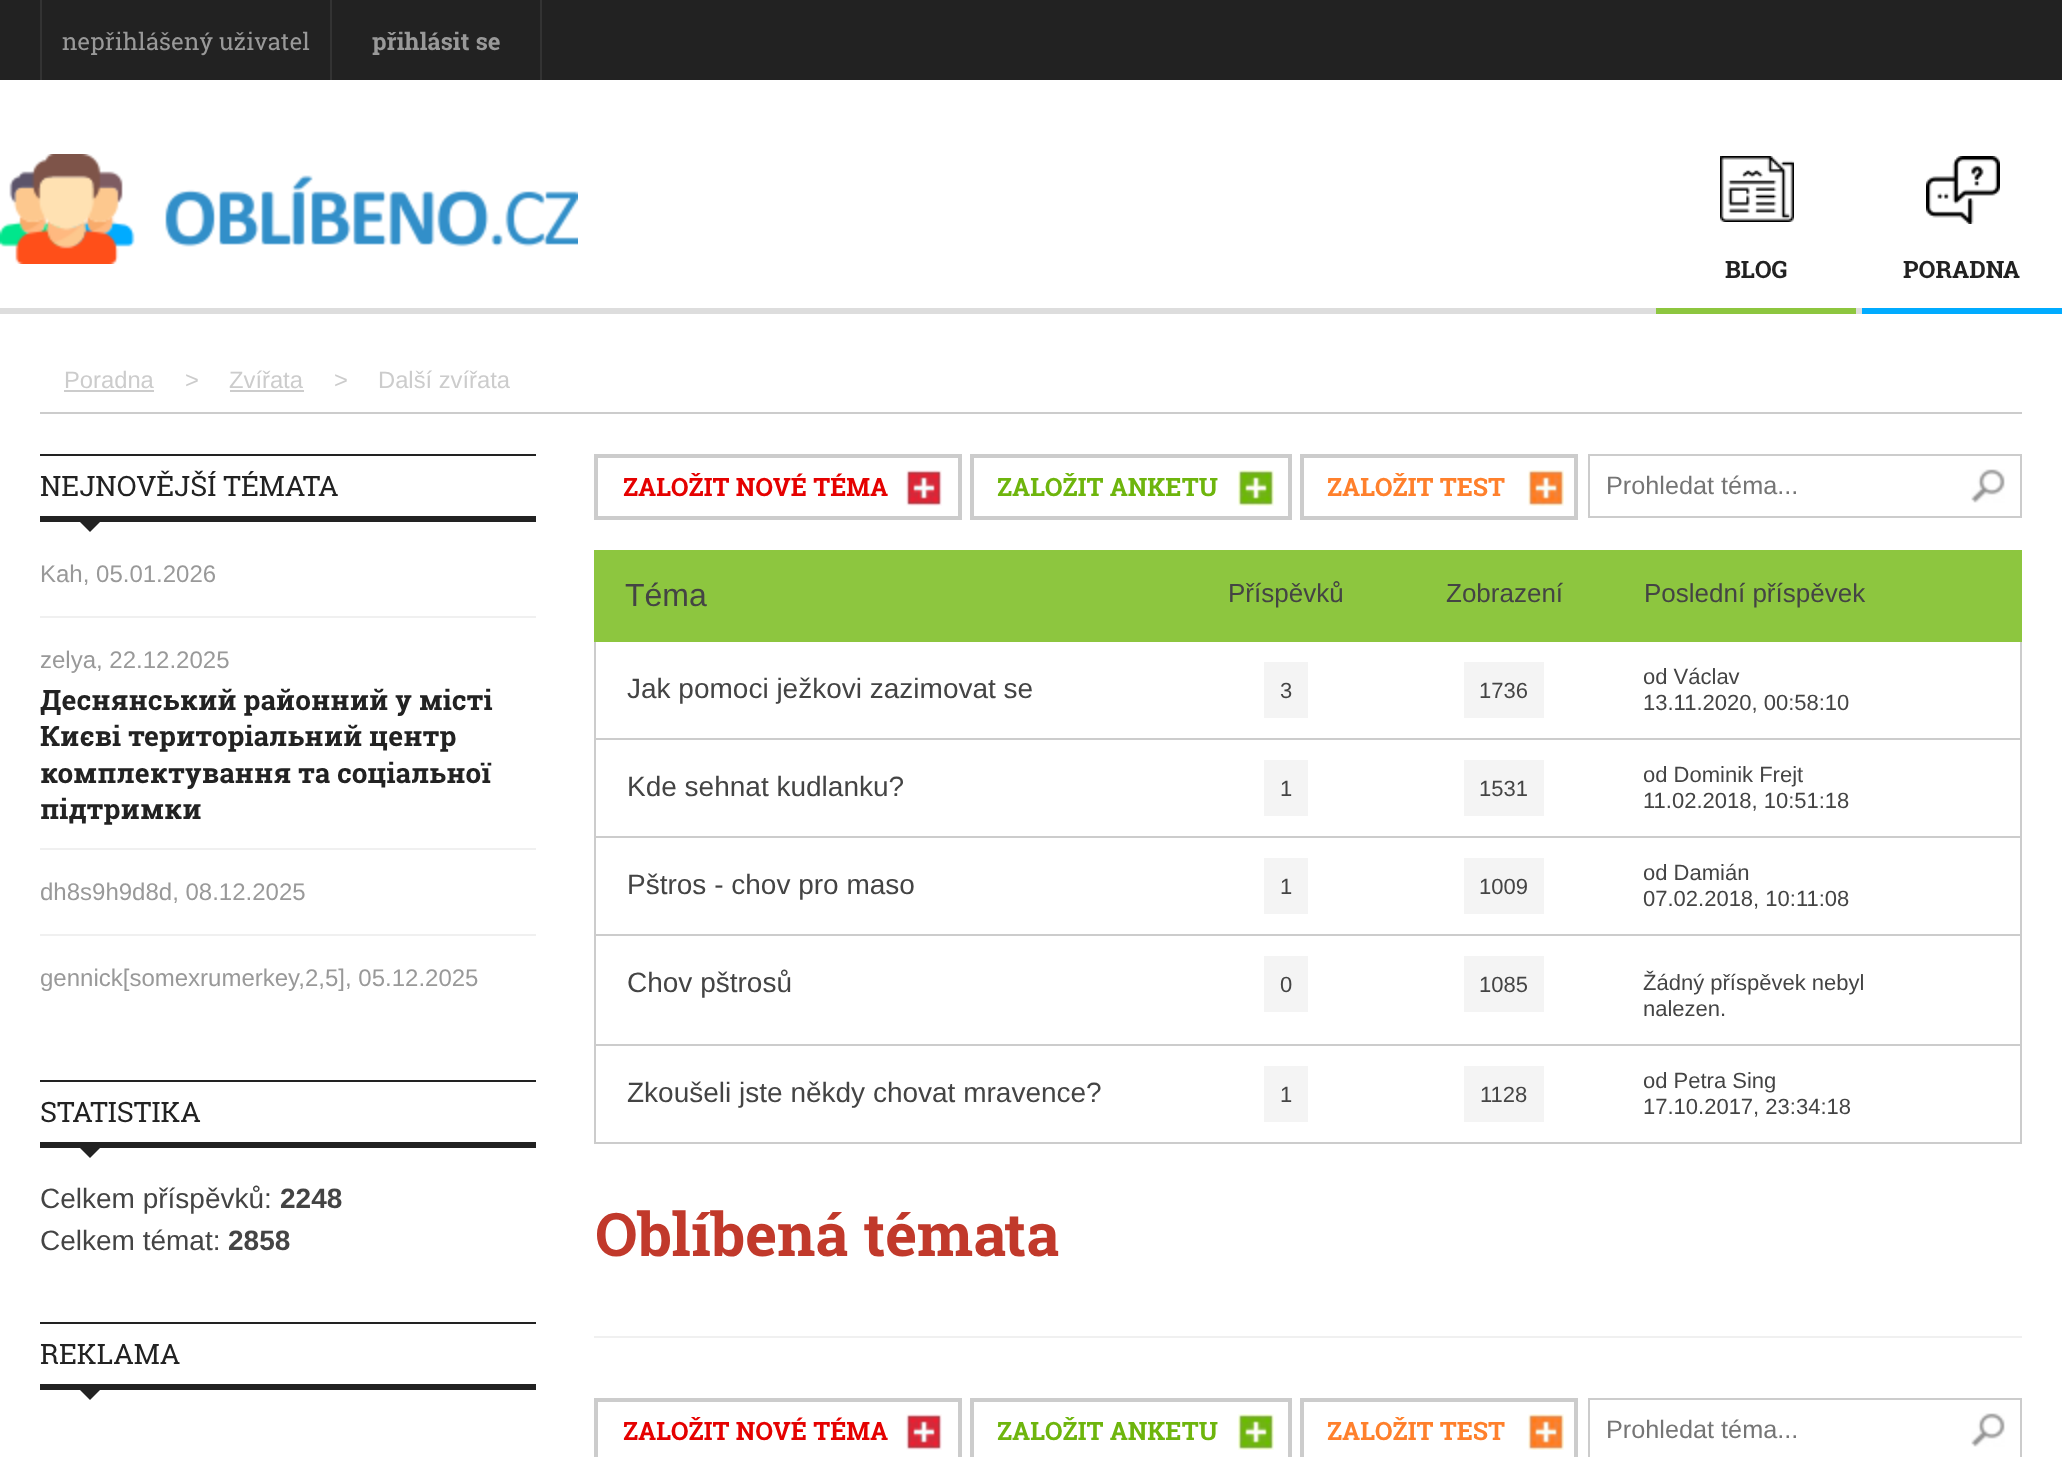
<svg xmlns="http://www.w3.org/2000/svg" width="2062" height="1457" viewBox="0 0 2062 1457">
  <rect width="100%" height="100%" fill="#fff"/>
  <path d="M0 0h2062v80H0z" fill="#222"/>
  <path d="M330 0h2v80H330z" fill="#333"/>
  <path d="M40 0h2v80H40z" fill="#333"/>
  <path d="M540 0h2v80H540z" fill="#333"/>
  <path d="M0 308h1862v6H0z" fill="#ddd"/>
  <image x="0" y="154" width="578" height="110" href="img/1.png"/>
  <image x="1720" y="156" width="74" height="66" href="img/2.png"/>
  <path d="M1656 308h200v6H1656z" fill="#8dc63f"/>
  <image x="1926" y="156" width="74" height="68" href="img/3.png"/>
  <path d="M1862 308h200v6H1862z" fill="#00abff"/>
  <path d="M40 412h1982v2H40z" fill="#ccc"/>
  <path d="M64 390h90v2H64z" fill="#ccc"/>
  <path d="M230 390h74v2H230z" fill="#ccc"/>
  <path d="M40 454h496v2H40z" fill="#222"/>
  <path d="M40 516h496v6H40z" fill="#222"/>
  <path d="M80 522H100L90 532Z" fill="#222"/>
  <path d="M40 616h496v2H40z" fill="#f0f0f0"/>
  <path d="M40 848h496v2H40z" fill="#f0f0f0"/>
  <path d="M40 934h496v2H40z" fill="#f0f0f0"/>
  <path d="M40 1080h496v2H40z" fill="#222"/>
  <path d="M40 1142h496v6H40z" fill="#222"/>
  <path d="M80 1148H100L90 1158Z" fill="#222"/>
  <path d="M40 1322h496v2H40z" fill="#222"/>
  <path d="M40 1384h496v6H40z" fill="#222"/>
  <path d="M80 1390H100L90 1400Z" fill="#222"/>
  <image x="906" y="470" width="36" height="36" href="img/4.png"/>
  <path d="M596 456h364v62H596z" fill="none" stroke="#ccc" stroke-width="4"/>
  <image x="1238" y="470" width="36" height="36" href="img/5.png"/>
  <path d="M972 456h318v62H972z" fill="none" stroke="#ccc" stroke-width="4"/>
  <image x="1528" y="470" width="36" height="36" href="img/6.png"/>
  <path d="M1302 456h274v62H1302z" fill="none" stroke="#ccc" stroke-width="4"/>
  <path d="M1589 455h432v62H1589z" fill="none" stroke="#ccc" stroke-width="2"/>
  <image x="1971" y="469" width="34" height="34" href="img/7.png"/>
  <path d="M594 550h1428v92H594z" fill="#8dc63f"/>
  <path d="M2020 642h2v502H2020z" fill="#ccc"/>
  <path d="M594 738h1428v2H594z" fill="#ccc"/>
  <path d="M594 642h2v98H594z" fill="#ccc"/>
  <path d="M1264 662h44v56H1264z" fill="#f4f4f4"/>
  <path d="M1464 662h80v56H1464z" fill="#f4f4f4"/>
  <path d="M594 836h1428v2H594z" fill="#ccc"/>
  <path d="M594 740h2v98H594z" fill="#ccc"/>
  <path d="M1264 760h44v56H1264z" fill="#f4f4f4"/>
  <path d="M1464 760h80v56H1464z" fill="#f4f4f4"/>
  <path d="M594 934h1428v2H594z" fill="#ccc"/>
  <path d="M594 838h2v98H594z" fill="#ccc"/>
  <path d="M1264 858h44v56H1264z" fill="#f4f4f4"/>
  <path d="M1464 858h80v56H1464z" fill="#f4f4f4"/>
  <path d="M594 1044h1428v2H594z" fill="#ccc"/>
  <path d="M594 936h2v110H594z" fill="#ccc"/>
  <path d="M1264 956h44v56H1264z" fill="#f4f4f4"/>
  <path d="M1464 956h80v56H1464z" fill="#f4f4f4"/>
  <path d="M594 1142h1428v2H594z" fill="#ccc"/>
  <path d="M594 1046h2v98H594z" fill="#ccc"/>
  <path d="M1264 1066h44v56H1264z" fill="#f4f4f4"/>
  <path d="M1464 1066h80v56H1464z" fill="#f4f4f4"/>
  <path d="M594 1336h1428v2H594z" fill="#f0f0f0"/>
  <image x="906" y="1414" width="36" height="36" href="img/4.png"/>
  <path d="M596 1400h364v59H596z" fill="none" stroke="#ccc" stroke-width="4"/>
  <image x="1238" y="1414" width="36" height="36" href="img/5.png"/>
  <path d="M972 1400h318v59H972z" fill="none" stroke="#ccc" stroke-width="4"/>
  <image x="1528" y="1414" width="36" height="36" href="img/6.png"/>
  <path d="M1302 1400h274v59H1302z" fill="none" stroke="#ccc" stroke-width="4"/>
  <path d="M1589 1399h432v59H1589z" fill="none" stroke="#ccc" stroke-width="2"/>
  <image x="1971" y="1413" width="34" height="34" href="img/7.png"/>
  <text x="62" y="50" font-family="Roboto Slab" font-size="24" fill="#999">nepřihlášený uživatel</text>
  <text x="372" y="50" font-family="Roboto Slab" font-size="24" font-weight="bold" fill="#999">přihlásit se</text>
  <g font-family="Roboto Slab" font-size="24" font-weight="bold" fill="#222">
    <text x="1725" y="278">BLOG</text>
    <text x="1903" y="278">PORADNA</text>
  </g>
  <g font-family="Liberation Sans" font-size="23.75" fill="#ccc">
    <text x="64" y="388">Poradna</text>
    <text x="185" y="388">&gt;</text>
    <text x="229" y="388">Zvířata</text>
    <text x="334" y="388">&gt;</text>
    <text x="378" y="388">Další zvířata</text>
  </g>
  <text x="40" y="496" font-family="Roboto Slab" font-size="28" fill="#222">NEJNOVĚJŠÍ TÉMATA</text>
  <g font-family="Liberation Sans" font-size="24" fill="#999">
    <text x="40" y="582">Kah, 05.01.2026</text>
    <text x="40" y="668">zelya, 22.12.2025</text>
  </g>
  <g font-family="Roboto Slab" font-size="28" font-weight="bold" fill="#222">
    <text x="40" y="710">Деснянський районний у місті</text>
    <text x="40" y="746">Києві територіальний центр</text>
    <text x="40" y="783">комплектування та соціальної</text>
    <text x="40" y="819">підтримки</text>
  </g>
  <g font-family="Liberation Sans" font-size="24" fill="#999">
    <text x="40" y="900">dh8s9h9d8d, 08.12.2025</text>
    <text x="40" y="986">gennick[somexrumerkey,2,5], 05.12.2025</text>
  </g>
  <text x="40" y="1122" font-family="Roboto Slab" font-size="28" fill="#222">STATISTIKA</text>
  <text x="40" y="1208" font-family="Liberation Sans" font-size="28" fill="#444">Celkem příspěvků:</text>
  <text x="280" y="1208" font-family="Liberation Sans" font-size="28" font-weight="bold" fill="#444">2248</text>
  <text x="40" y="1250" font-family="Liberation Sans" font-size="28" fill="#444">Celkem témat:</text>
  <text x="228" y="1250" font-family="Liberation Sans" font-size="28" font-weight="bold" fill="#444">2858</text>
  <text x="40" y="1364" font-family="Roboto Slab" font-size="28" fill="#222">REKLAMA</text>
  <text x="623" y="496" font-family="Roboto Slab" font-size="25.25" font-weight="bold" fill="#e50100">ZALOŽIT NOVÉ TÉMA</text>
  <text x="997" y="496" font-family="Roboto Slab" font-size="25.25" font-weight="bold" fill="#6eb50d">ZALOŽIT ANKETU</text>
  <text x="1327" y="496" font-family="Roboto Slab" font-size="25.25" font-weight="bold" fill="#ff802c">ZALOŽIT TEST</text>
  <text x="1606" y="494" font-family="Liberation Sans" font-size="25.25" fill="#757575">Prohledat téma...</text>
  <text x="625" y="606" font-family="Liberation Sans" font-size="32" fill="#444">Téma</text>
  <g font-family="Liberation Sans" font-size="26" fill="#444">
    <text x="1228" y="602">Příspěvků</text>
    <text x="1446" y="602">Zobrazení</text>
    <text x="1644" y="602">Poslední příspěvek</text>
  </g>
  <text x="627" y="698" font-family="Liberation Sans" font-size="28" fill="#444">Jak pomoci ježkovi zazimovat se</text>
  <g font-family="Liberation Sans" font-size="22" fill="#444">
    <text x="1280" y="698">3</text>
    <text x="1479" y="698">1736</text>
    <text x="1643" y="684">od Václav</text>
    <text x="1643" y="710">13.11.2020, 00:58:10</text>
  </g>
  <text x="627" y="796" font-family="Liberation Sans" font-size="28" fill="#444">Kde sehnat kudlanku?</text>
  <g font-family="Liberation Sans" font-size="22" fill="#444">
    <text x="1280" y="796">1</text>
    <text x="1479" y="796">1531</text>
    <text x="1643" y="782">od Dominik Frejt</text>
    <text x="1643" y="808">11.02.2018, 10:51:18</text>
  </g>
  <text x="627" y="894" font-family="Liberation Sans" font-size="28" fill="#444">Pštros - chov pro maso</text>
  <g font-family="Liberation Sans" font-size="22" fill="#444">
    <text x="1280" y="894">1</text>
    <text x="1479" y="894">1009</text>
    <text x="1643" y="880">od Damián</text>
    <text x="1643" y="906">07.02.2018, 10:11:08</text>
  </g>
  <text x="627" y="992" font-family="Liberation Sans" font-size="28" fill="#444">Chov pštrosů</text>
  <g font-family="Liberation Sans" font-size="22" fill="#444">
    <text x="1280" y="992">0</text>
    <text x="1479" y="992">1085</text>
    <text x="1643" y="990">Žádný příspěvek nebyl</text>
    <text x="1643" y="1016">nalezen.</text>
  </g>
  <text x="627" y="1102" font-family="Liberation Sans" font-size="28" fill="#444">Zkoušeli jste někdy chovat mravence?</text>
  <g font-family="Liberation Sans" font-size="22" fill="#444">
    <text x="1280" y="1102">1</text>
    <text x="1480" y="1102">1128</text>
    <text x="1643" y="1088">od Petra Sing</text>
    <text x="1643" y="1114">17.10.2017, 23:34:18</text>
  </g>
  <text x="595" y="1256" font-family="Roboto Slab" font-size="60" font-weight="bold" fill="#c1392b">Oblíbená témata</text>
  <text x="623" y="1440" font-family="Roboto Slab" font-size="25.25" font-weight="bold" fill="#e50100">ZALOŽIT NOVÉ TÉMA</text>
  <text x="997" y="1440" font-family="Roboto Slab" font-size="25.25" font-weight="bold" fill="#6eb50d">ZALOŽIT ANKETU</text>
  <text x="1327" y="1440" font-family="Roboto Slab" font-size="25.25" font-weight="bold" fill="#ff802c">ZALOŽIT TEST</text>
  <text x="1606" y="1438" font-family="Liberation Sans" font-size="25.25" fill="#757575">Prohledat téma...</text>
</svg>
